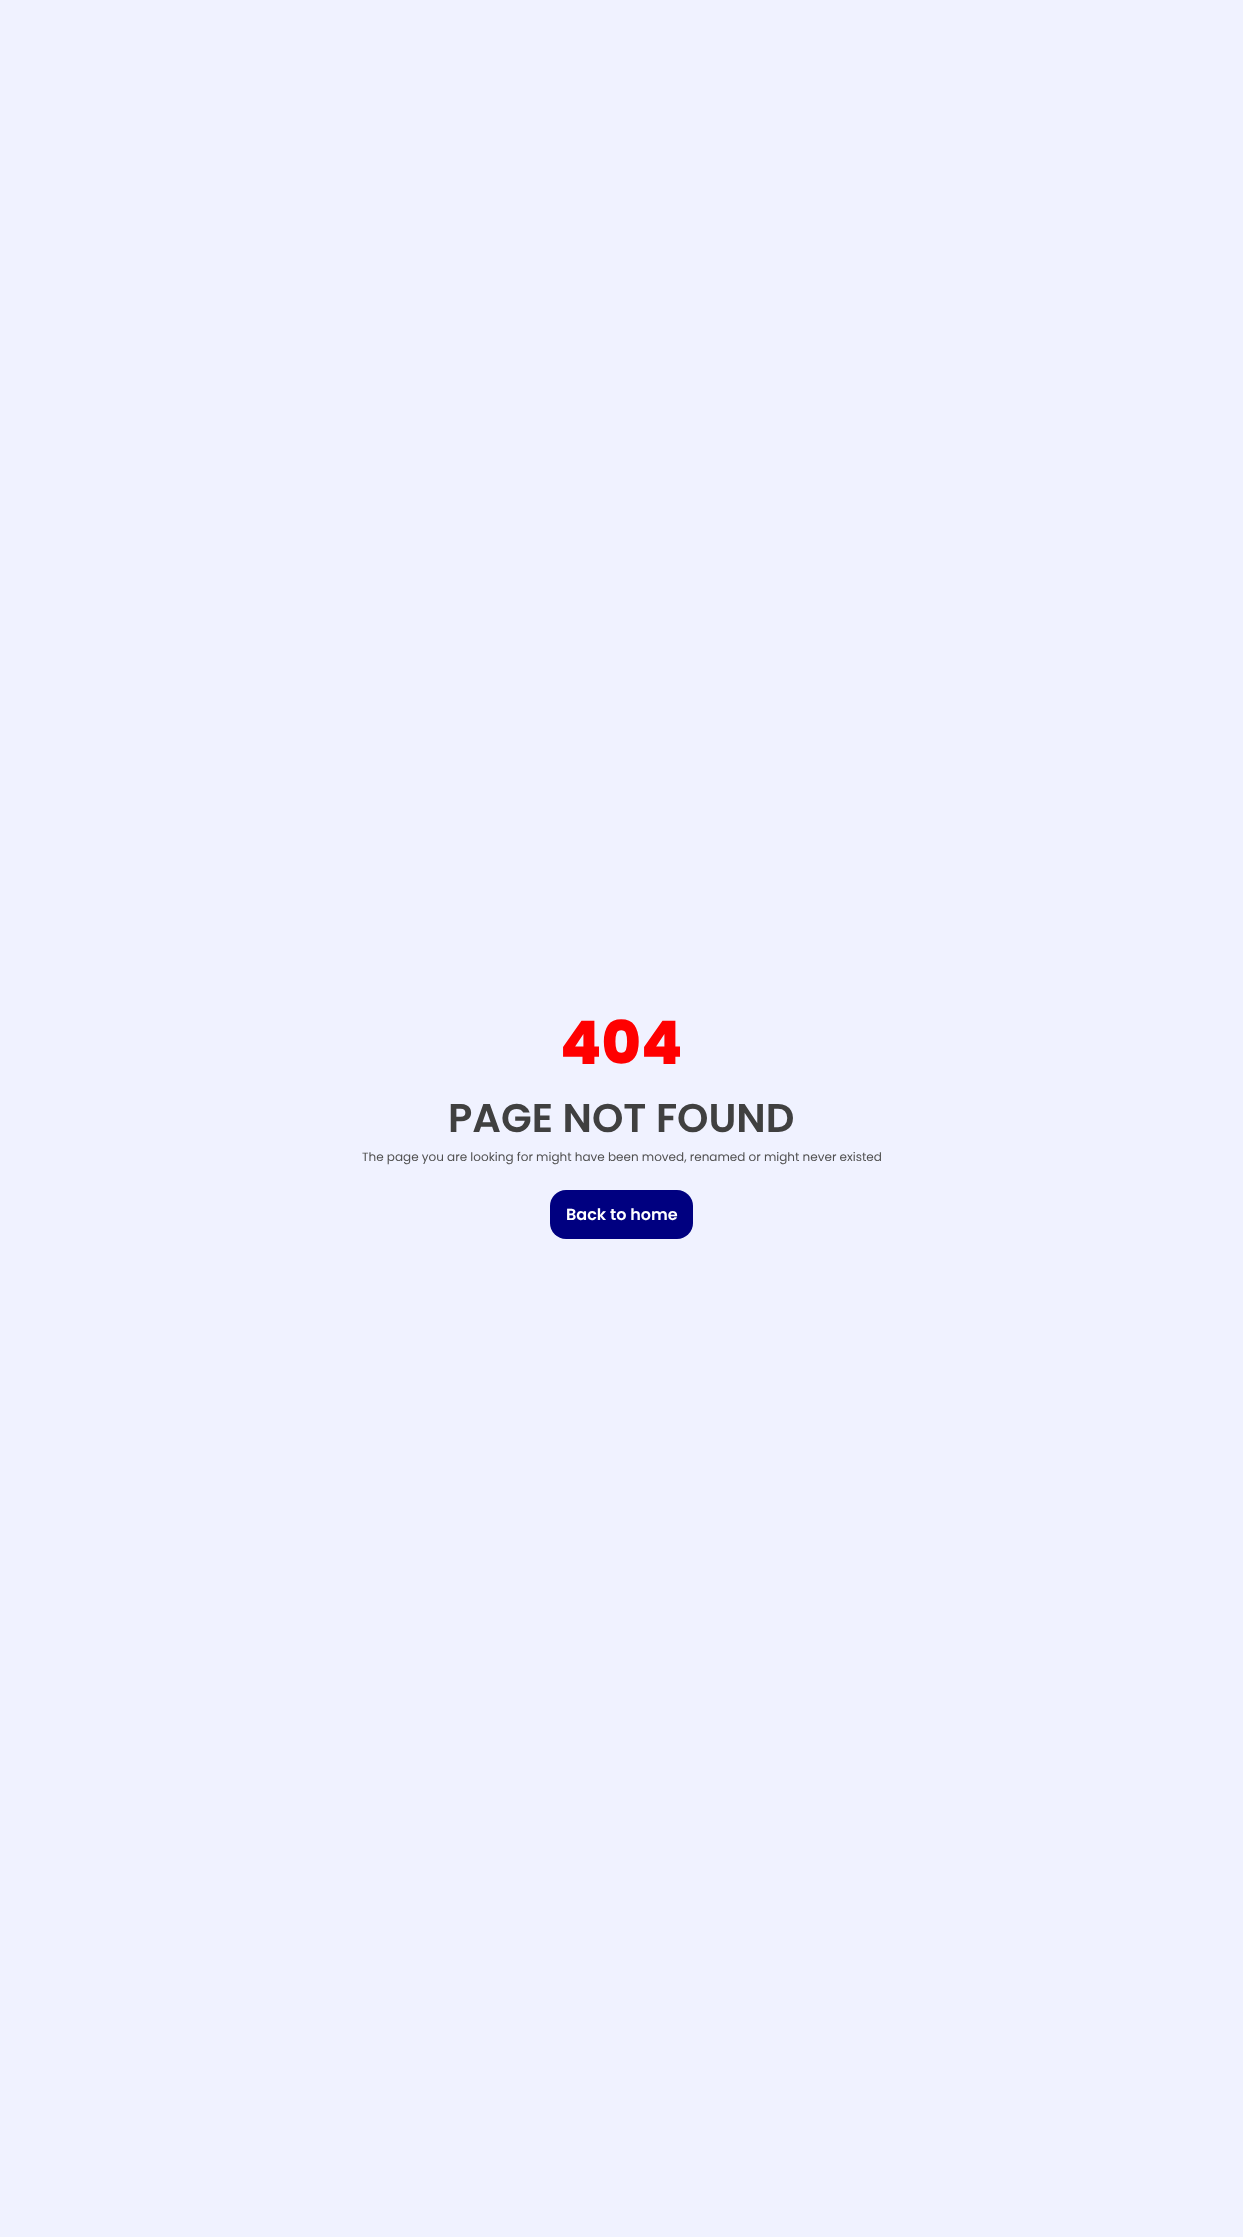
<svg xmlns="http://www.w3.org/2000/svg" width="1243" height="2237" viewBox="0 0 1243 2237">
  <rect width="100%" height="100%" fill="#f0f2ff"/>
  <rect x="550" y="1190" width="143" height="49" rx="16" fill="#000080"/>
  <text x="560" y="1064" font-family="Poppins" font-size="60" font-weight="800" fill="#f00">404</text>
  <text x="448" y="1132" font-family="Poppins" font-size="40" font-weight="600" fill="#404040">PAGE NOT FOUND</text>
  <text x="362" y="1161" font-family="Poppins" font-size="12" fill="#505050">The page you are looking for might have been moved, renamed or might never existed</text>
  <text x="566" y="1220" font-family="Poppins" font-size="16" font-weight="600" fill="#fff">Back to home</text>
</svg>
